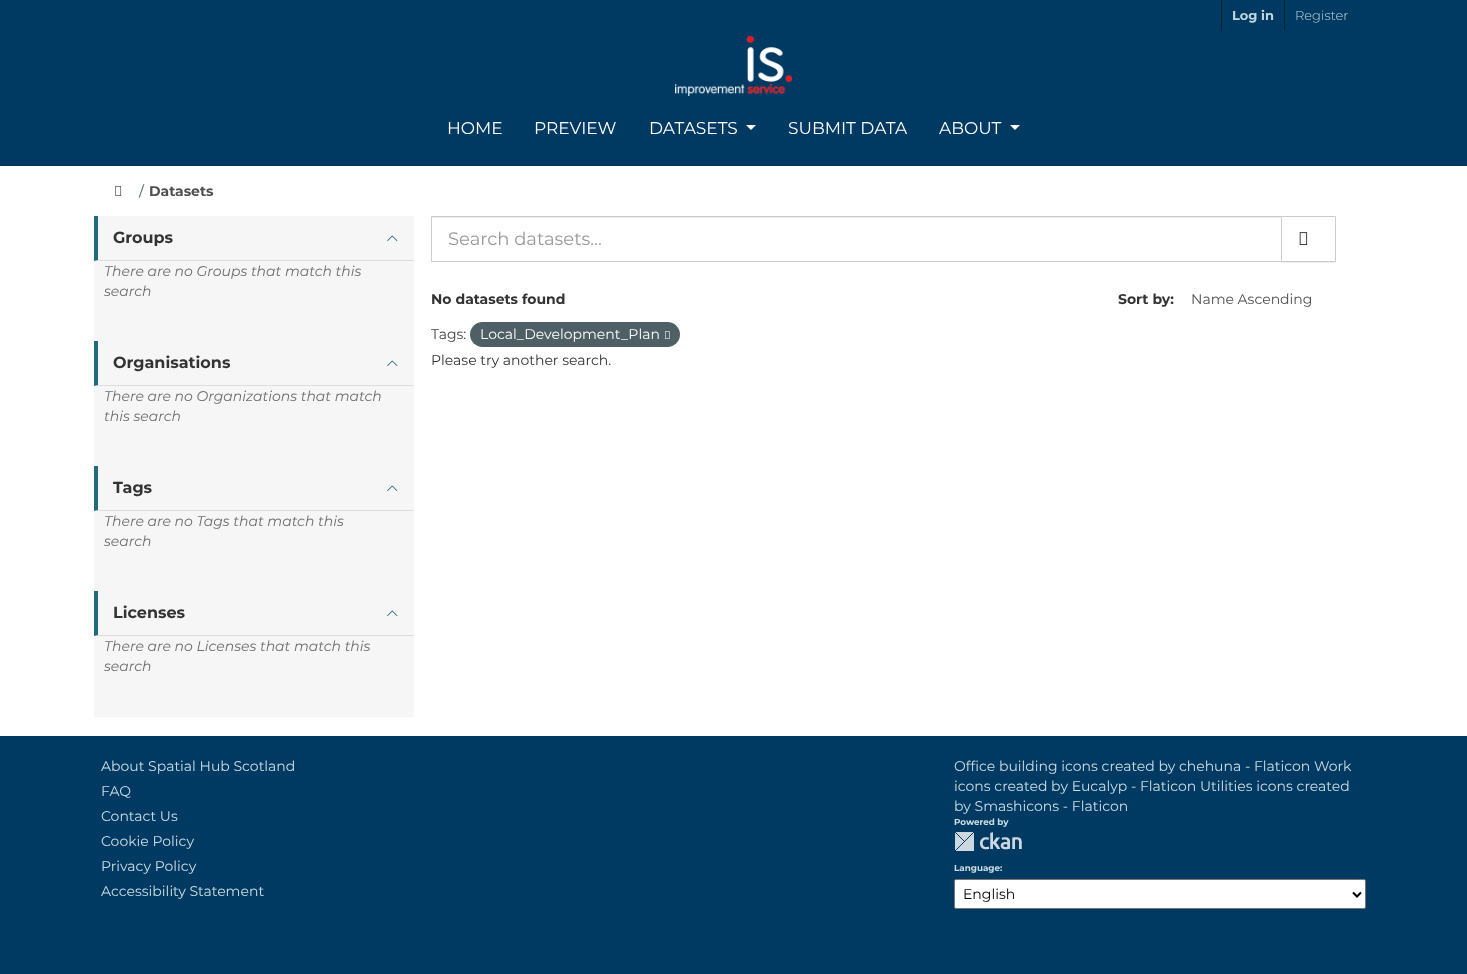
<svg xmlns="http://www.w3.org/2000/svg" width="1467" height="974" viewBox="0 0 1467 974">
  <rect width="100%" height="100%" fill="#003a62"/>
  <path d="M1221 0h1v31H1221z" fill="#00232e"/>
  <path d="M1284 0h1v31H1284z" fill="#00232e"/>
  <image x="675" y="36" width="117" height="60" href="img/1.png"/>
  <path d="M746 125H756L751 130Z" fill="#fff"/>
  <path d="M1010 125H1020L1015 130Z" fill="#fff"/>
  <path d="M0 166h1467v570H0z" fill="#fff"/>
  <image x="115" y="186" width="7" height="10" href="img/2.png"/>
  <rect x="94" y="217" width="320" height="125" rx="2.5" fill="#0000000d" filter="blur(0.5px)"/>
  <rect x="94" y="216" width="320" height="125" rx="2.5" fill="#f6f6f6"/>
  <path d="M94 216h320v2H94z" fill="#f5f5f5"/>
  <path d="M414 261H94L98 260H414Z" fill="#ddd"/>
  <path d="M94 261V216H98V260Z" fill="#206b82"/>
  <image x="387" y="235" width="11" height="6" href="img/3.png"/>
  <rect x="94" y="342" width="320" height="125" rx="2.5" fill="#0000000d" filter="blur(0.5px)"/>
  <rect x="94" y="341" width="320" height="125" rx="2.5" fill="#f6f6f6"/>
  <path d="M94 341h320v2H94z" fill="#f5f5f5"/>
  <path d="M414 386H94L98 385H414Z" fill="#ddd"/>
  <path d="M94 386V341H98V385Z" fill="#206b82"/>
  <image x="387" y="360" width="11" height="6" href="img/3.png"/>
  <rect x="94" y="467" width="320" height="125" rx="2.5" fill="#0000000d" filter="blur(0.5px)"/>
  <rect x="94" y="466" width="320" height="125" rx="2.5" fill="#f6f6f6"/>
  <path d="M94 466h320v2H94z" fill="#f5f5f5"/>
  <path d="M414 511H94L98 510H414Z" fill="#ddd"/>
  <path d="M94 511V466H98V510Z" fill="#206b82"/>
  <image x="387" y="485" width="11" height="6" href="img/3.png"/>
  <rect x="94" y="592" width="320" height="125" rx="2.5" fill="#0000000d" filter="blur(0.5px)"/>
  <rect x="94" y="591" width="320" height="125" rx="2.5" fill="#f6f6f6"/>
  <path d="M94 591h320v2H94z" fill="#f5f5f5"/>
  <path d="M414 636H94L98 635H414Z" fill="#ddd"/>
  <path d="M94 636V591H98V635Z" fill="#206b82"/>
  <image x="387" y="610" width="11" height="6" href="img/3.png"/>
  <path d="M432 217h849v1H432z" fill="#ececec"/>
  <path d="M431.5 216.5h850v45H431.5z" fill="none" stroke="#ccc"/>
  <path d="M1281 217h55v46H1281z" fill="#00000012" filter="blur(0.5px)"/>
  <path d="M1281.5 216.5h54v45H1281.5z" fill="#fff" stroke="#ccc"/>
  <image x="1299" y="232" width="9" height="13" href="img/4.png"/>
  <rect x="470" y="322" width="210" height="25" rx="12.5" fill="#4e5f65"/>
  <image x="665" y="331" width="5" height="8" href="img/5.png"/>
  <image x="955" y="832" width="67" height="19" href="img/6.png"/>
  <rect x="954.5" y="879.5" width="411" height="29" rx="1.5" fill="#fff" stroke="#767676"/>
  <path d="M1353 892.5L1357 896.5L1361 892.5" fill="none" stroke="#000" stroke-width="2"/>
  <text x="1232" y="20" font-family="Montserrat" font-size="13" font-weight="bold" fill="#bfd7de">Log in</text>
  <text x="1295" y="20" font-family="Montserrat" font-size="13" font-weight="300" fill="#bfd7de">Register</text>
  <g font-family="Montserrat" font-size="17" fill="#fff">
    <text x="447" y="134">HOME</text>
    <text x="534" y="134">PREVIEW</text>
    <text x="649" y="134">DATASETS</text>
    <text x="788" y="134">SUBMIT DATA</text>
    <text x="939" y="134">ABOUT</text>
  </g>
  <text x="139" y="196" font-family="Montserrat" font-size="14" font-weight="500" fill="#6c757d">/</text>
  <text x="149" y="196" font-family="Montserrat" font-size="14" font-weight="bold" fill="#505050">Datasets</text>
  <text x="113" y="243" font-family="Montserrat" font-size="16" font-weight="bold" fill="#333">Groups</text>
  <g font-family="Montserrat" font-size="14" font-style="italic" fill="#6e6e6e">
    <text x="104" y="276">There are no Groups that match this</text>
    <text x="104" y="296">search</text>
  </g>
  <text x="113" y="368" font-family="Montserrat" font-size="16" font-weight="bold" fill="#333">Organisations</text>
  <g font-family="Montserrat" font-size="14" font-style="italic" fill="#6e6e6e">
    <text x="104" y="401">There are no Organizations that match</text>
    <text x="104" y="421">this search</text>
  </g>
  <text x="113" y="493" font-family="Montserrat" font-size="16" font-weight="bold" fill="#333">Tags</text>
  <g font-family="Montserrat" font-size="14" font-style="italic" fill="#6e6e6e">
    <text x="104" y="526">There are no Tags that match this</text>
    <text x="104" y="546">search</text>
  </g>
  <text x="113" y="618" font-family="Montserrat" font-size="16" font-weight="bold" fill="#333">Licenses</text>
  <g font-family="Montserrat" font-size="14" font-style="italic" fill="#6e6e6e">
    <text x="104" y="651">There are no Licenses that match this</text>
    <text x="104" y="671">search</text>
  </g>
  <text x="448" y="245" font-family="Montserrat" font-size="18" fill="#999">Search datasets...</text>
  <g font-family="Montserrat" font-size="14" font-weight="bold" fill="#333">
    <text x="431" y="304">No datasets found</text>
    <text x="1118" y="304">Sort by:</text>
  </g>
  <text x="1191" y="304" font-family="Montserrat" font-size="14" fill="#505050">Name Ascending</text>
  <text x="431" y="339" font-family="Montserrat" font-size="14" fill="#444">Tags:</text>
  <text x="480" y="339" font-family="Montserrat" font-size="14" fill="#fff">Local_Development_Plan</text>
  <text x="431" y="365" font-family="Montserrat" font-size="14" fill="#333">Please try another search.</text>
  <g font-family="Montserrat" font-size="14" fill="#ccdee3">
    <text x="101" y="771">About Spatial Hub Scotland</text>
    <text x="101" y="796">FAQ</text>
    <text x="101" y="821">Contact Us</text>
    <text x="101" y="846">Cookie Policy</text>
    <text x="101" y="871">Privacy Policy</text>
    <text x="101" y="896">Accessibility Statement</text>
    <text x="954" y="771">Office building icons created by chehuna - Flaticon Work</text>
    <text x="954" y="791">icons created by Eucalyp - Flaticon Utilities icons created</text>
    <text x="954" y="811">by Smashicons - Flaticon</text>
  </g>
  <g font-family="Montserrat" font-size="8.75" font-weight="bold" fill="#ccdee3">
    <text x="954" y="825">Powered by</text>
    <text x="954" y="871">Language:</text>
  </g>
  <text x="963" y="899" font-family="Montserrat" font-size="14" fill="#000">English</text>
</svg>
